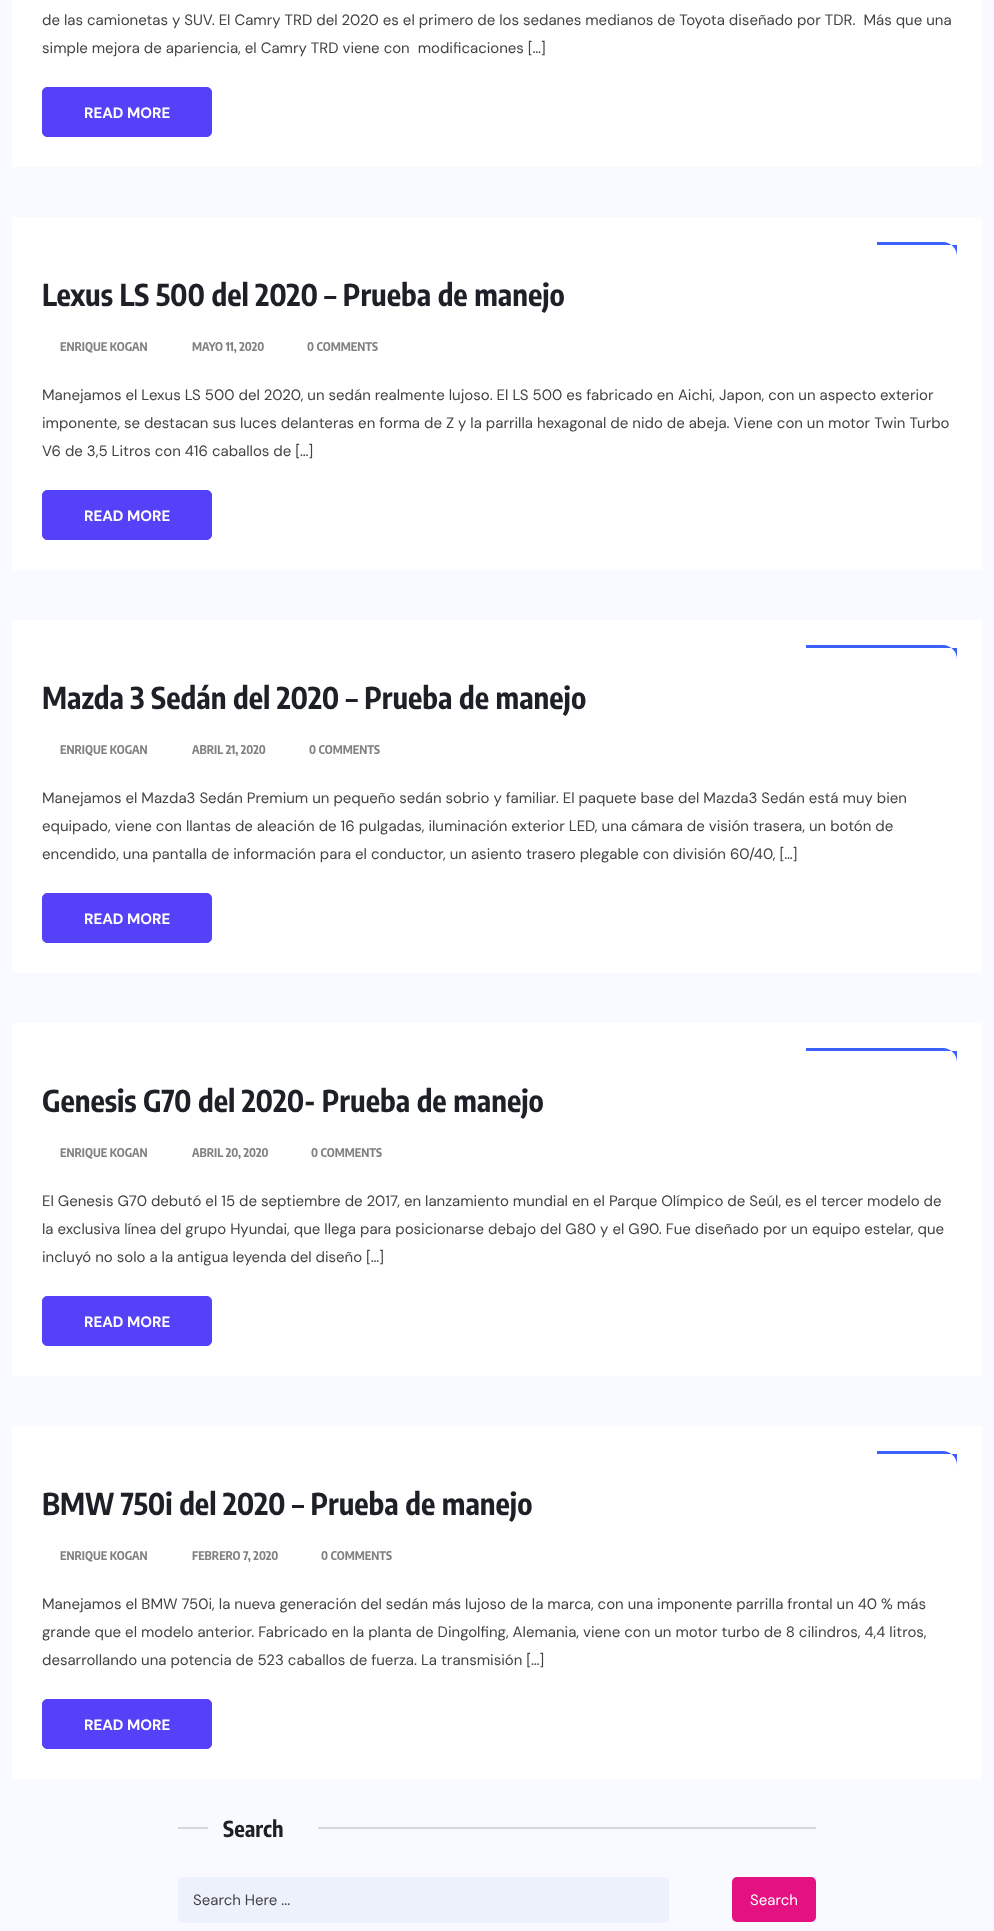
<svg xmlns="http://www.w3.org/2000/svg" width="994" height="1931" viewBox="0 0 994 1931">
  <rect width="100%" height="100%" fill="#f9faff"/>
  <path d="M12 0h970v167H12z" fill="#fff"/>
  <rect x="42.5" y="87.5" width="169" height="49" rx="4.5" fill="#5541f8" stroke="#5541f8"/>
  <path d="M12 217h970v353H12z" fill="#fff"/>
  <path d="M877 242H943C950.5 242 957 248.5 957 256V245H877Z" fill="#3b60fe"/>
  <rect x="42.5" y="490.5" width="169" height="49" rx="4.5" fill="#5541f8" stroke="#5541f8"/>
  <path d="M12 620h970v353H12z" fill="#fff"/>
  <path d="M806 645H943C950.5 645 957 651.5 957 659V648H806Z" fill="#3b60fe"/>
  <rect x="42.5" y="893.5" width="169" height="49" rx="4.5" fill="#5541f8" stroke="#5541f8"/>
  <path d="M12 1023h970v353H12z" fill="#fff"/>
  <path d="M806 1048H943C950.5 1048 957 1054.5 957 1062V1051H806Z" fill="#3b60fe"/>
  <rect x="42.5" y="1296.5" width="169" height="49" rx="4.5" fill="#5541f8" stroke="#5541f8"/>
  <path d="M12 1426h970v353H12z" fill="#fff"/>
  <path d="M877 1451H943C950.5 1451 957 1457.5 957 1465V1454H877Z" fill="#3b60fe"/>
  <rect x="42.5" y="1699.5" width="169" height="49" rx="4.5" fill="#5541f8" stroke="#5541f8"/>
  <path d="M178 1827h30v2H178z" fill="#d7d7d7"/>
  <path d="M318 1827h498v2H318z" fill="#d7d7d7"/>
  <rect x="178" y="1877" width="491" height="46" rx="5" fill="#ecf1fc"/>
  <rect x="732" y="1877" width="84" height="45" rx="5" fill="#e41183"/>
  <g font-family="DM Sans" font-size="15" fill="#434343">
    <text x="42" y="25" xml:space="preserve">de las camionetas y SUV. El Camry TRD del 2020 es el primero de los sedanes medianos de Toyota diseñado por TDR.  Más que una</text>
    <text x="42" y="53" xml:space="preserve">simple mejora de apariencia, el Camry TRD viene con  modificaciones […]</text>
  </g>
  <text x="84" y="118" font-family="DM Sans" font-size="15" font-weight="bold" fill="#fff">READ MORE</text>
  <text x="42" y="306" font-family="Encode Sans Condensed" font-size="30" font-weight="bold" fill="#1d2027">Lexus LS 500 del 2020 – Prueba de manejo</text>
  <g font-family="Encode Sans Condensed" font-size="12" font-weight="bold" fill="#818181">
    <text x="60" y="351">ENRIQUE KOGAN</text>
    <text x="192" y="351">MAYO 11, 2020</text>
    <text x="307" y="351">0 COMMENTS</text>
  </g>
  <g font-family="DM Sans" font-size="15" fill="#434343">
    <text x="42" y="400">Manejamos el Lexus LS 500 del 2020, un sedán realmente lujoso. El LS 500 es fabricado en Aichi, Japon, con un aspecto exterior</text>
    <text x="42" y="428">imponente, se destacan sus luces delanteras en forma de Z y la parrilla hexagonal de nido de abeja. Viene con un motor Twin Turbo</text>
    <text x="42" y="456">V6 de 3,5 Litros con 416 caballos de […]</text>
  </g>
  <text x="84" y="521" font-family="DM Sans" font-size="15" font-weight="bold" fill="#fff">READ MORE</text>
  <text x="42" y="709" font-family="Encode Sans Condensed" font-size="30" font-weight="bold" fill="#1d2027">Mazda 3 Sedán del 2020 – Prueba de manejo</text>
  <g font-family="Encode Sans Condensed" font-size="12" font-weight="bold" fill="#818181">
    <text x="60" y="754">ENRIQUE KOGAN</text>
    <text x="192" y="754">ABRIL 21, 2020</text>
    <text x="309" y="754">0 COMMENTS</text>
  </g>
  <g font-family="DM Sans" font-size="15" fill="#434343">
    <text x="42" y="803">Manejamos el Mazda3 Sedán Premium un pequeño sedán sobrio y familiar. El paquete base del Mazda3 Sedán está muy bien</text>
    <text x="42" y="831">equipado, viene con llantas de aleación de 16 pulgadas, iluminación exterior LED, una cámara de visión trasera, un botón de</text>
    <text x="42" y="859">encendido, una pantalla de información para el conductor, un asiento trasero plegable con división 60/40, […]</text>
  </g>
  <text x="84" y="924" font-family="DM Sans" font-size="15" font-weight="bold" fill="#fff">READ MORE</text>
  <text x="42" y="1112" font-family="Encode Sans Condensed" font-size="30" font-weight="bold" fill="#1d2027">Genesis G70 del 2020- Prueba de manejo</text>
  <g font-family="Encode Sans Condensed" font-size="12" font-weight="bold" fill="#818181">
    <text x="60" y="1157">ENRIQUE KOGAN</text>
    <text x="192" y="1157">ABRIL 20, 2020</text>
    <text x="311" y="1157">0 COMMENTS</text>
  </g>
  <g font-family="DM Sans" font-size="15" fill="#434343">
    <text x="42" y="1206">El Genesis G70 debutó el 15 de septiembre de 2017, en lanzamiento mundial en el Parque Olímpico de Seúl, es el tercer modelo de</text>
    <text x="42" y="1234">la exclusiva línea del grupo Hyundai, que llega para posicionarse debajo del G80 y el G90. Fue diseñado por un equipo estelar, que</text>
    <text x="42" y="1262">incluyó no solo a la antigua leyenda del diseño […]</text>
  </g>
  <text x="84" y="1327" font-family="DM Sans" font-size="15" font-weight="bold" fill="#fff">READ MORE</text>
  <text x="42" y="1515" font-family="Encode Sans Condensed" font-size="30" font-weight="bold" fill="#1d2027">BMW 750i del 2020 – Prueba de manejo</text>
  <g font-family="Encode Sans Condensed" font-size="12" font-weight="bold" fill="#818181">
    <text x="60" y="1560">ENRIQUE KOGAN</text>
    <text x="192" y="1560">FEBRERO 7, 2020</text>
    <text x="321" y="1560">0 COMMENTS</text>
  </g>
  <g font-family="DM Sans" font-size="15" fill="#434343">
    <text x="42" y="1609">Manejamos el BMW 750i, la nueva generación del sedán más lujoso de la marca, con una imponente parrilla frontal un 40 % más</text>
    <text x="42" y="1637">grande que el modelo anterior. Fabricado en la planta de Dingolfing, Alemania, viene con un motor turbo de 8 cilindros, 4,4 litros,</text>
    <text x="42" y="1665">desarrollando una potencia de 523 caballos de fuerza. La transmisión […]</text>
  </g>
  <text x="84" y="1730" font-family="DM Sans" font-size="15" font-weight="bold" fill="#fff">READ MORE</text>
  <text x="223" y="1837" font-family="Encode Sans Condensed" font-size="22" font-weight="bold" fill="#1d2027">Search</text>
  <text x="193" y="1905" font-family="DM Sans" font-size="15" fill="#434343">Search Here ...</text>
  <text x="750" y="1905" font-family="DM Sans" font-size="15" fill="#fff">Search</text>
</svg>
